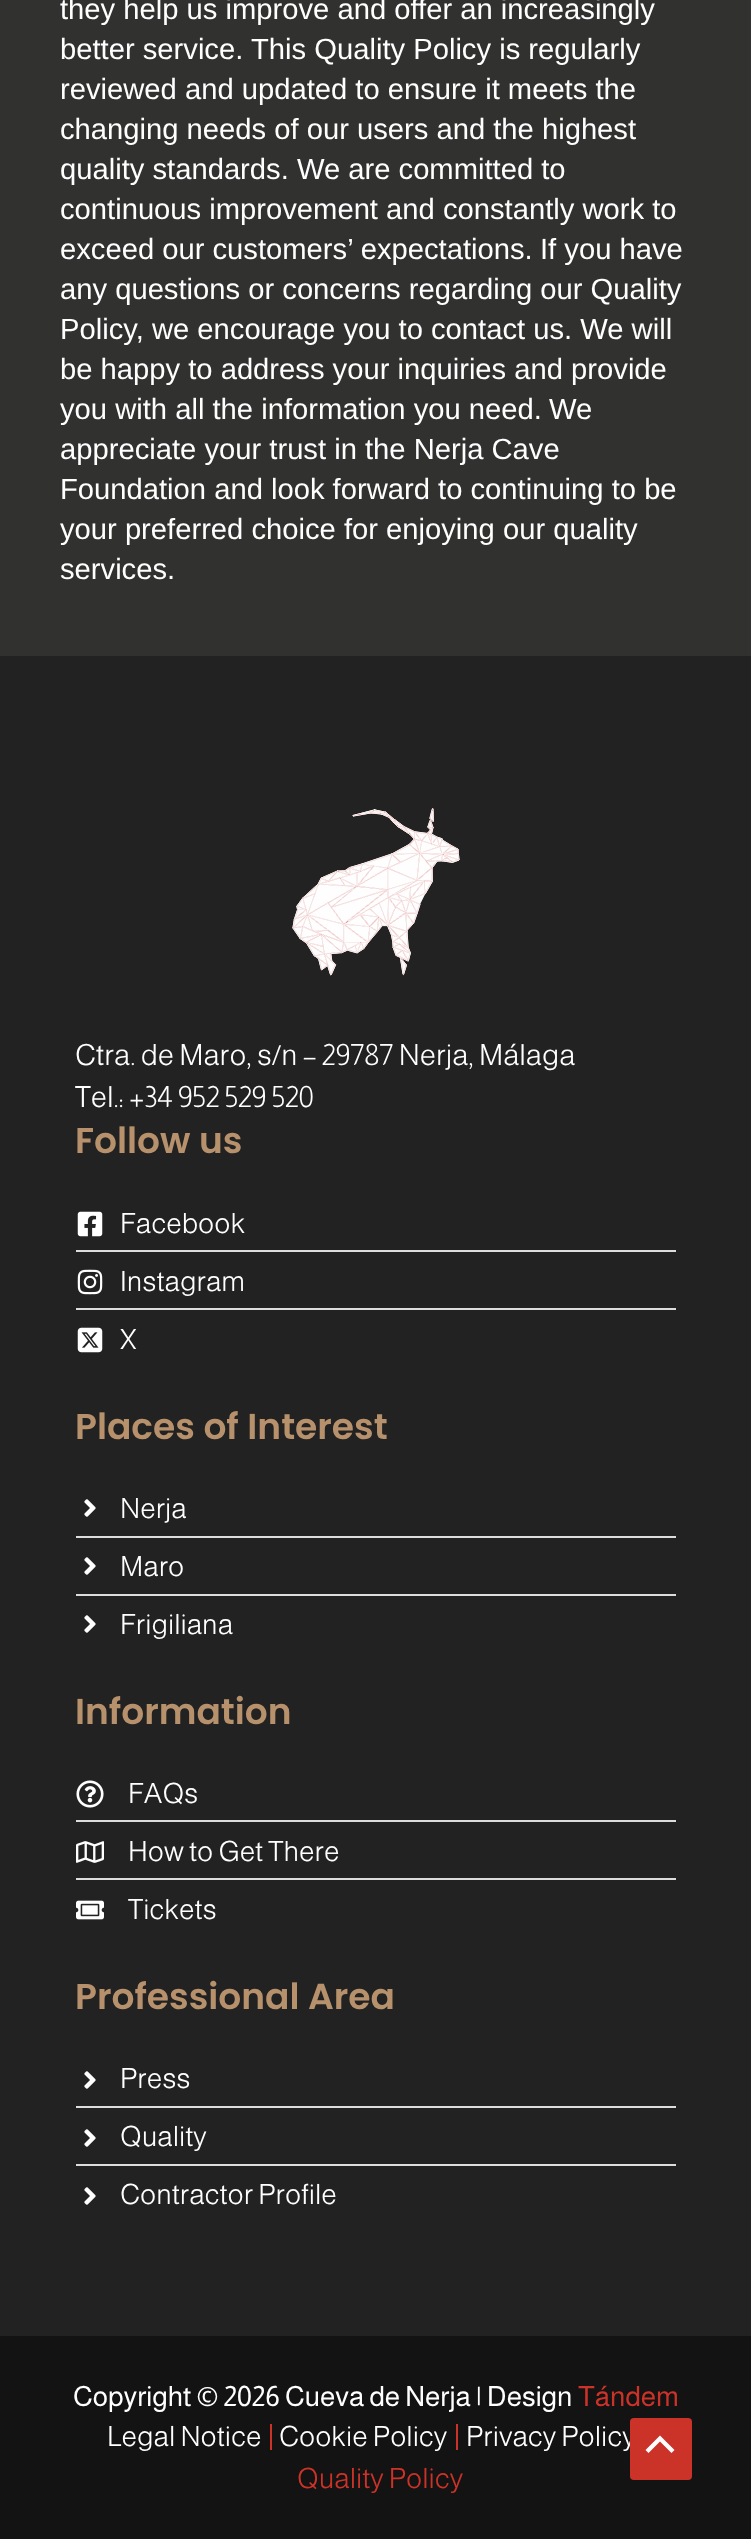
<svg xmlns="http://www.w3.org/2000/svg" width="751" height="2539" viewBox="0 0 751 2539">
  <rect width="100%" height="100%" fill="#313130"/>
  <path d="M0 656h751v1680H0z" fill="#222"/>
  <image x="292" y="808" width="168" height="168" href="img/1.png"/>
  <image x="77" y="1211" width="26" height="26" href="img/2.png"/>
  <path d="M76 1250h600v2H76z" fill="#ddd"/>
  <image x="77" y="1269" width="26" height="26" href="img/3.png"/>
  <path d="M76 1308h600v2H76z" fill="#ddd"/>
  <image x="77" y="1327" width="26" height="26" href="img/4.png"/>
  <image x="84" y="1499" width="12" height="18" href="img/5.png"/>
  <path d="M76 1536h600v2H76z" fill="#ddd"/>
  <image x="84" y="1557" width="12" height="18" href="img/5.png"/>
  <path d="M76 1594h600v2H76z" fill="#ddd"/>
  <image x="84" y="1615" width="12" height="18" href="img/5.png"/>
  <image x="76" y="1780" width="28" height="28" href="img/6.png"/>
  <path d="M76 1820h600v2H76z" fill="#ddd"/>
  <image x="76" y="1841" width="28" height="22" href="img/7.png"/>
  <path d="M76 1878h600v2H76z" fill="#ddd"/>
  <image x="76" y="1900" width="28" height="20" href="img/8.png"/>
  <image x="84" y="2071" width="12" height="18" href="img/5.png"/>
  <path d="M76 2106h600v2H76z" fill="#ddd"/>
  <image x="84" y="2129" width="12" height="18" href="img/5.png"/>
  <path d="M76 2164h600v2H76z" fill="#ddd"/>
  <image x="84" y="2187" width="12" height="18" href="img/5.png"/>
  <path d="M0 2336h751v203H0z" fill="#131313"/>
  <path d="M270 2424h2v26H270z" fill="#cb3329"/>
  <path d="M456 2424h2v26H456z" fill="#cb3329"/>
  <g font-family="Liberation Sans" font-size="29.2" fill="#fff">
    <text x="60" y="19">they help us improve and offer an increasingly</text>
    <text x="60" y="59">better service.</text>
    <text x="251" y="59">This Quality Policy is regularly</text>
    <text x="60" y="99">reviewed and updated to ensure it meets the</text>
    <text x="60" y="139">changing needs of our users and the highest</text>
    <text x="60" y="179">quality standards. We are committed to</text>
    <text x="60" y="219">continuous improvement and constantly work to</text>
    <text x="60" y="259">exceed our customers’ expectations.</text>
    <text x="540" y="259">If you have</text>
    <text x="60" y="299">any questions or concerns regarding our Quality</text>
    <text x="60" y="339">Policy, we encourage you to contact us. We will</text>
    <text x="60" y="379">be happy to address your inquiries and provide</text>
    <text x="60" y="419">you with all the information you need.</text>
    <text x="549" y="419">We</text>
    <text x="60" y="459">appreciate your trust in the Nerja Cave</text>
    <text x="60" y="499">Foundation and look forward to continuing to be</text>
    <text x="60" y="539">your preferred choice for enjoying our quality</text>
    <text x="60" y="579">services.</text>
  </g>
  <g font-family="Almarai" font-size="29.2" font-weight="300" fill="#fff">
    <text x="75" y="1065">Ctra. de Maro, s/n – 29787 Nerja, Málaga</text>
    <text x="75" y="1107">Tel.: +34 952 529 520</text>
  </g>
  <text x="75" y="1153" font-family="Poppins" font-size="36" font-weight="600" fill="#b7916c">Follow us</text>
  <g font-family="Almarai" font-size="28" font-weight="300" fill="#fff">
    <text x="120" y="1233">Facebook</text>
    <text x="120" y="1291">Instagram</text>
    <text x="120" y="1349">X</text>
  </g>
  <text x="75" y="1439" font-family="Poppins" font-size="36" font-weight="600" fill="#b7916c">Places of Interest</text>
  <g font-family="Almarai" font-size="28" font-weight="300" fill="#fff">
    <text x="120" y="1518">Nerja</text>
    <text x="120" y="1576">Maro</text>
    <text x="120" y="1634">Frigiliana</text>
  </g>
  <text x="75" y="1724" font-family="Poppins" font-size="36" font-weight="600" fill="#b7916c">Information</text>
  <g font-family="Almarai" font-size="28" font-weight="300" fill="#fff">
    <text x="128" y="1803">FAQs</text>
    <text x="128" y="1861">How to Get There</text>
    <text x="128" y="1919">Tickets</text>
  </g>
  <text x="75" y="2009" font-family="Poppins" font-size="36" font-weight="600" fill="#b7916c">Professional Area</text>
  <g font-family="Almarai" font-size="28" font-weight="300" fill="#fff">
    <text x="120" y="2088">Press</text>
    <text x="120" y="2146">Quality</text>
    <text x="120" y="2204">Contractor Profile</text>
  </g>
  <text x="73" y="2406" font-family="Almarai" font-size="28" fill="#fff">Copyright © 2026 Cueva de Nerja | Design</text>
  <text x="578" y="2406" font-family="Almarai" font-size="28" fill="#cb3329">Tándem</text>
  <g font-family="Almarai" font-size="28" font-weight="300" fill="#fff">
    <text x="107" y="2446">Legal Notice</text>
    <text x="279" y="2446">Cookie Policy</text>
    <text x="466" y="2446">Privacy Policy</text>
  </g>
  <text x="297" y="2488" font-family="Almarai" font-size="28" font-weight="300" fill="#cb3329">Quality Policy</text>
  <rect x="630" y="2418" width="62" height="62" rx="4" fill="#cb3329"/>
  <path d="M674.5 2450L660 2435.5L645.5 2450L648.5 2453L660 2441.5L671.5 2453Z" fill="#fff"/>
</svg>
